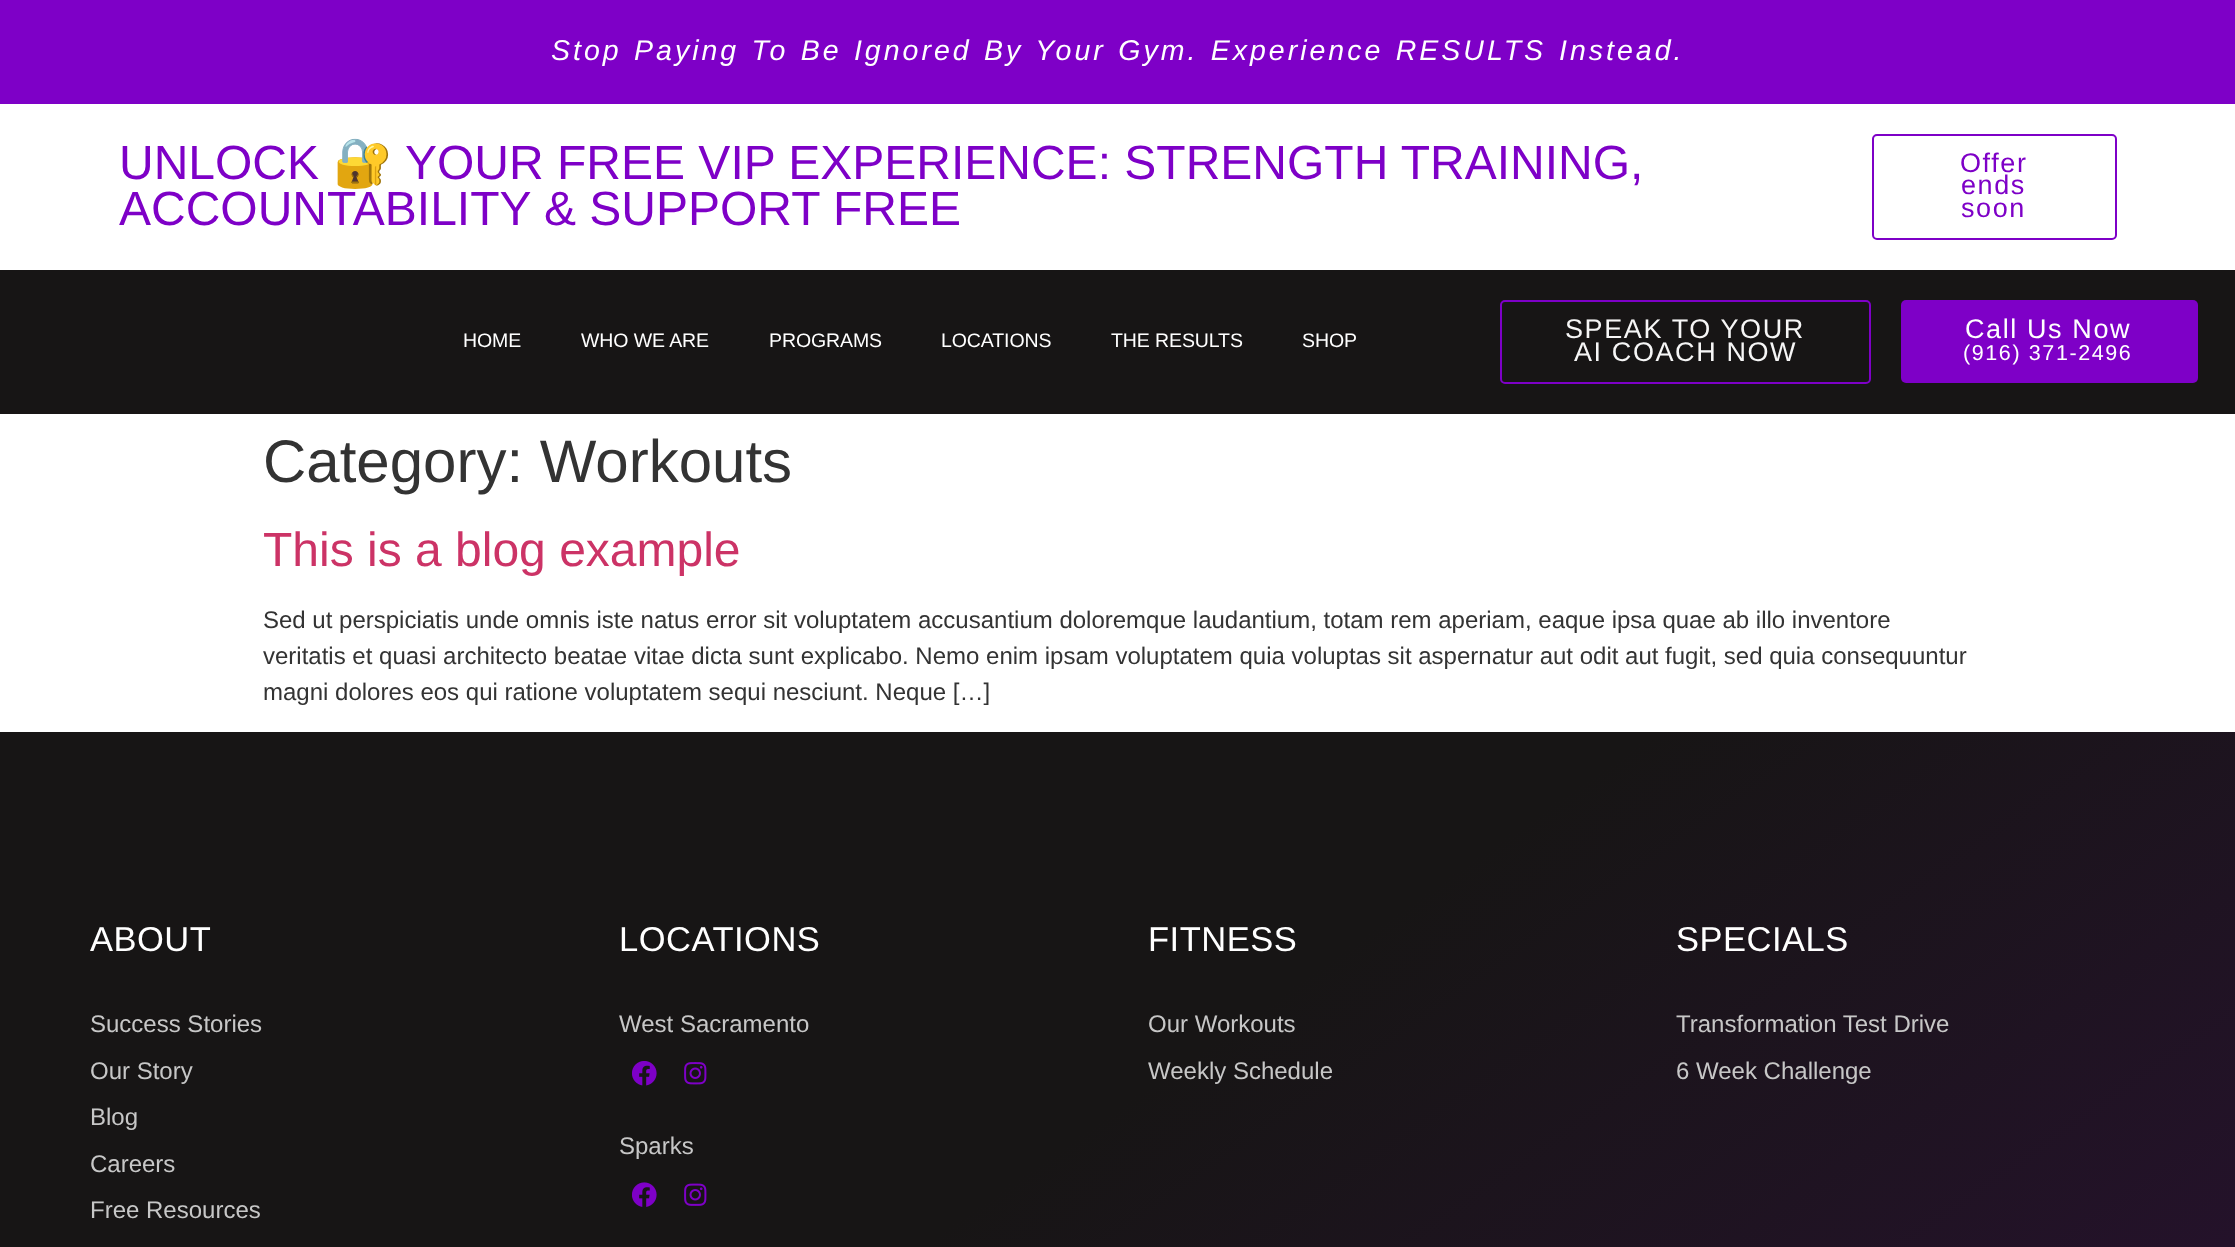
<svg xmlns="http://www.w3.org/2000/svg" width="2235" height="1247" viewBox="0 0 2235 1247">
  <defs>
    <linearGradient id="g1" gradientUnits="userSpaceOnUse" x1="594" y1="316" x2="1641" y2="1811"><stop offset="0.52" stop-color="#171515"/><stop offset="0.93" stop-color="#24122a"/></linearGradient>
  </defs>
  <rect width="100%" height="100%" fill="#fff"/>
  <path d="M0 0h2235v104H0z" fill="#7e00c7"/>
  <rect x="1873" y="135" width="243" height="104" rx="4" fill="none" stroke="#7e00c7" stroke-width="2"/>
  <path d="M0 270h2235v144H0z" fill="#171515"/>
  <rect x="1501" y="301" width="369" height="82" rx="4" fill="none" stroke="#7e00c7" stroke-width="2"/>
  <rect x="1901" y="300" width="297" height="83" rx="5" fill="#7e00c7"/>
  <path d="M0 732h2235v515H0z" fill="url(#g1)"/>
  <image x="632" y="1061" width="25" height="25" href="img/1.png"/>
  <image x="684" y="1062" width="23" height="23" href="img/2.png"/>
  <image x="632" y="1182" width="25" height="25" href="img/3.png"/>
  <image x="684" y="1183" width="23" height="23" href="img/4.png"/>
  <g font-family="Liberation Sans" font-size="28.5" font-style="italic" letter-spacing="3" fill="#fff">
    <text x="551" y="60" word-spacing="1.5">Stop Paying To Be Ignored By Your Gym. Experience RESULTS</text>
    <text x="1559" y="60">Instead.</text>
  </g>
  <text x="119" y="179" font-family="Liberation Sans" font-size="48" fill="#7e00c7">UNLOCK</text>
  <text x="333" y="179" font-family="Noto Color Emoji" font-size="48" fill="#7e00c7">🔐</text>
  <g font-family="Liberation Sans" font-size="48" fill="#7e00c7">
    <text x="405" y="179">YOUR FREE VIP EXPERIENCE: STRENGTH TRAINING,</text>
    <text x="119" y="225">ACCOUNTABILITY &amp; SUPPORT FREE</text>
  </g>
  <g font-family="Liberation Sans" font-size="27" letter-spacing="1.6" fill="#7e00c7">
    <text x="1960" y="172">Offer</text>
    <text x="1961" y="194">ends</text>
    <text x="1961" y="217">soon</text>
  </g>
  <g font-family="Liberation Sans" font-size="19.5" letter-spacing="-0.1" fill="#fff">
    <text x="463" y="347">HOME</text>
    <text x="581" y="347">WHO WE ARE</text>
    <text x="769" y="347">PROGRAMS</text>
    <text x="941" y="347">LOCATIONS</text>
    <text x="1111" y="347">THE RESULTS</text>
    <text x="1302" y="347">SHOP</text>
  </g>
  <g font-family="Liberation Sans" font-size="27" letter-spacing="1.6" fill="#f6f6f6">
    <text x="1565" y="338">SPEAK TO YOUR</text>
    <text x="1574" y="361">AI COACH NOW</text>
  </g>
  <text x="1965" y="338" font-family="Liberation Sans" font-size="27" letter-spacing="1.6" fill="#fff">Call Us Now</text>
  <text x="1963" y="360" font-family="Liberation Sans" font-size="21.5" letter-spacing="1.6" fill="#fff">(916) 371-2496</text>
  <text x="263" y="482" font-family="Liberation Sans" font-size="60" fill="#333">Category: Workouts</text>
  <text x="263" y="566" font-family="Liberation Sans" font-size="48" fill="#c36">This is a blog example</text>
  <g font-family="Liberation Sans" font-size="24" fill="#333">
    <text x="263" y="628">Sed ut perspiciatis unde omnis iste natus error sit voluptatem accusantium doloremque laudantium, totam rem aperiam, eaque ipsa quae ab illo inventore</text>
    <text x="263" y="664">veritatis et quasi architecto beatae vitae dicta sunt explicabo. Nemo enim ipsam voluptatem quia voluptas sit aspernatur aut odit aut fugit, sed quia consequuntur</text>
    <text x="263" y="700">magni dolores eos qui ratione voluptatem sequi nesciunt. Neque […]</text>
  </g>
  <text x="90" y="951" font-family="Liberation Sans" font-size="34.5" letter-spacing="0.5" fill="#fff">ABOUT</text>
  <g font-family="Liberation Sans" font-size="24" fill="#c7c7c7">
    <text x="90" y="1032">Success Stories</text>
    <text x="90" y="1079">Our Story</text>
    <text x="90" y="1125">Blog</text>
    <text x="90" y="1172">Careers</text>
    <text x="90" y="1218">Free Resources</text>
  </g>
  <text x="619" y="951" font-family="Liberation Sans" font-size="34.5" letter-spacing="0.5" fill="#fff">LOCATIONS</text>
  <g font-family="Liberation Sans" font-size="24" fill="#c7c7c7">
    <text x="619" y="1032">West Sacramento</text>
    <text x="619" y="1154">Sparks</text>
  </g>
  <text x="1148" y="951" font-family="Liberation Sans" font-size="34.5" letter-spacing="0.5" fill="#fff">FITNESS</text>
  <g font-family="Liberation Sans" font-size="24" fill="#c7c7c7">
    <text x="1148" y="1032">Our Workouts</text>
    <text x="1148" y="1079">Weekly Schedule</text>
  </g>
  <text x="1676" y="951" font-family="Liberation Sans" font-size="34.5" letter-spacing="0.5" fill="#fff">SPECIALS</text>
  <g font-family="Liberation Sans" font-size="24" fill="#c7c7c7">
    <text x="1676" y="1032">Transformation Test Drive</text>
    <text x="1676" y="1079">6 Week Challenge</text>
  </g>
</svg>
